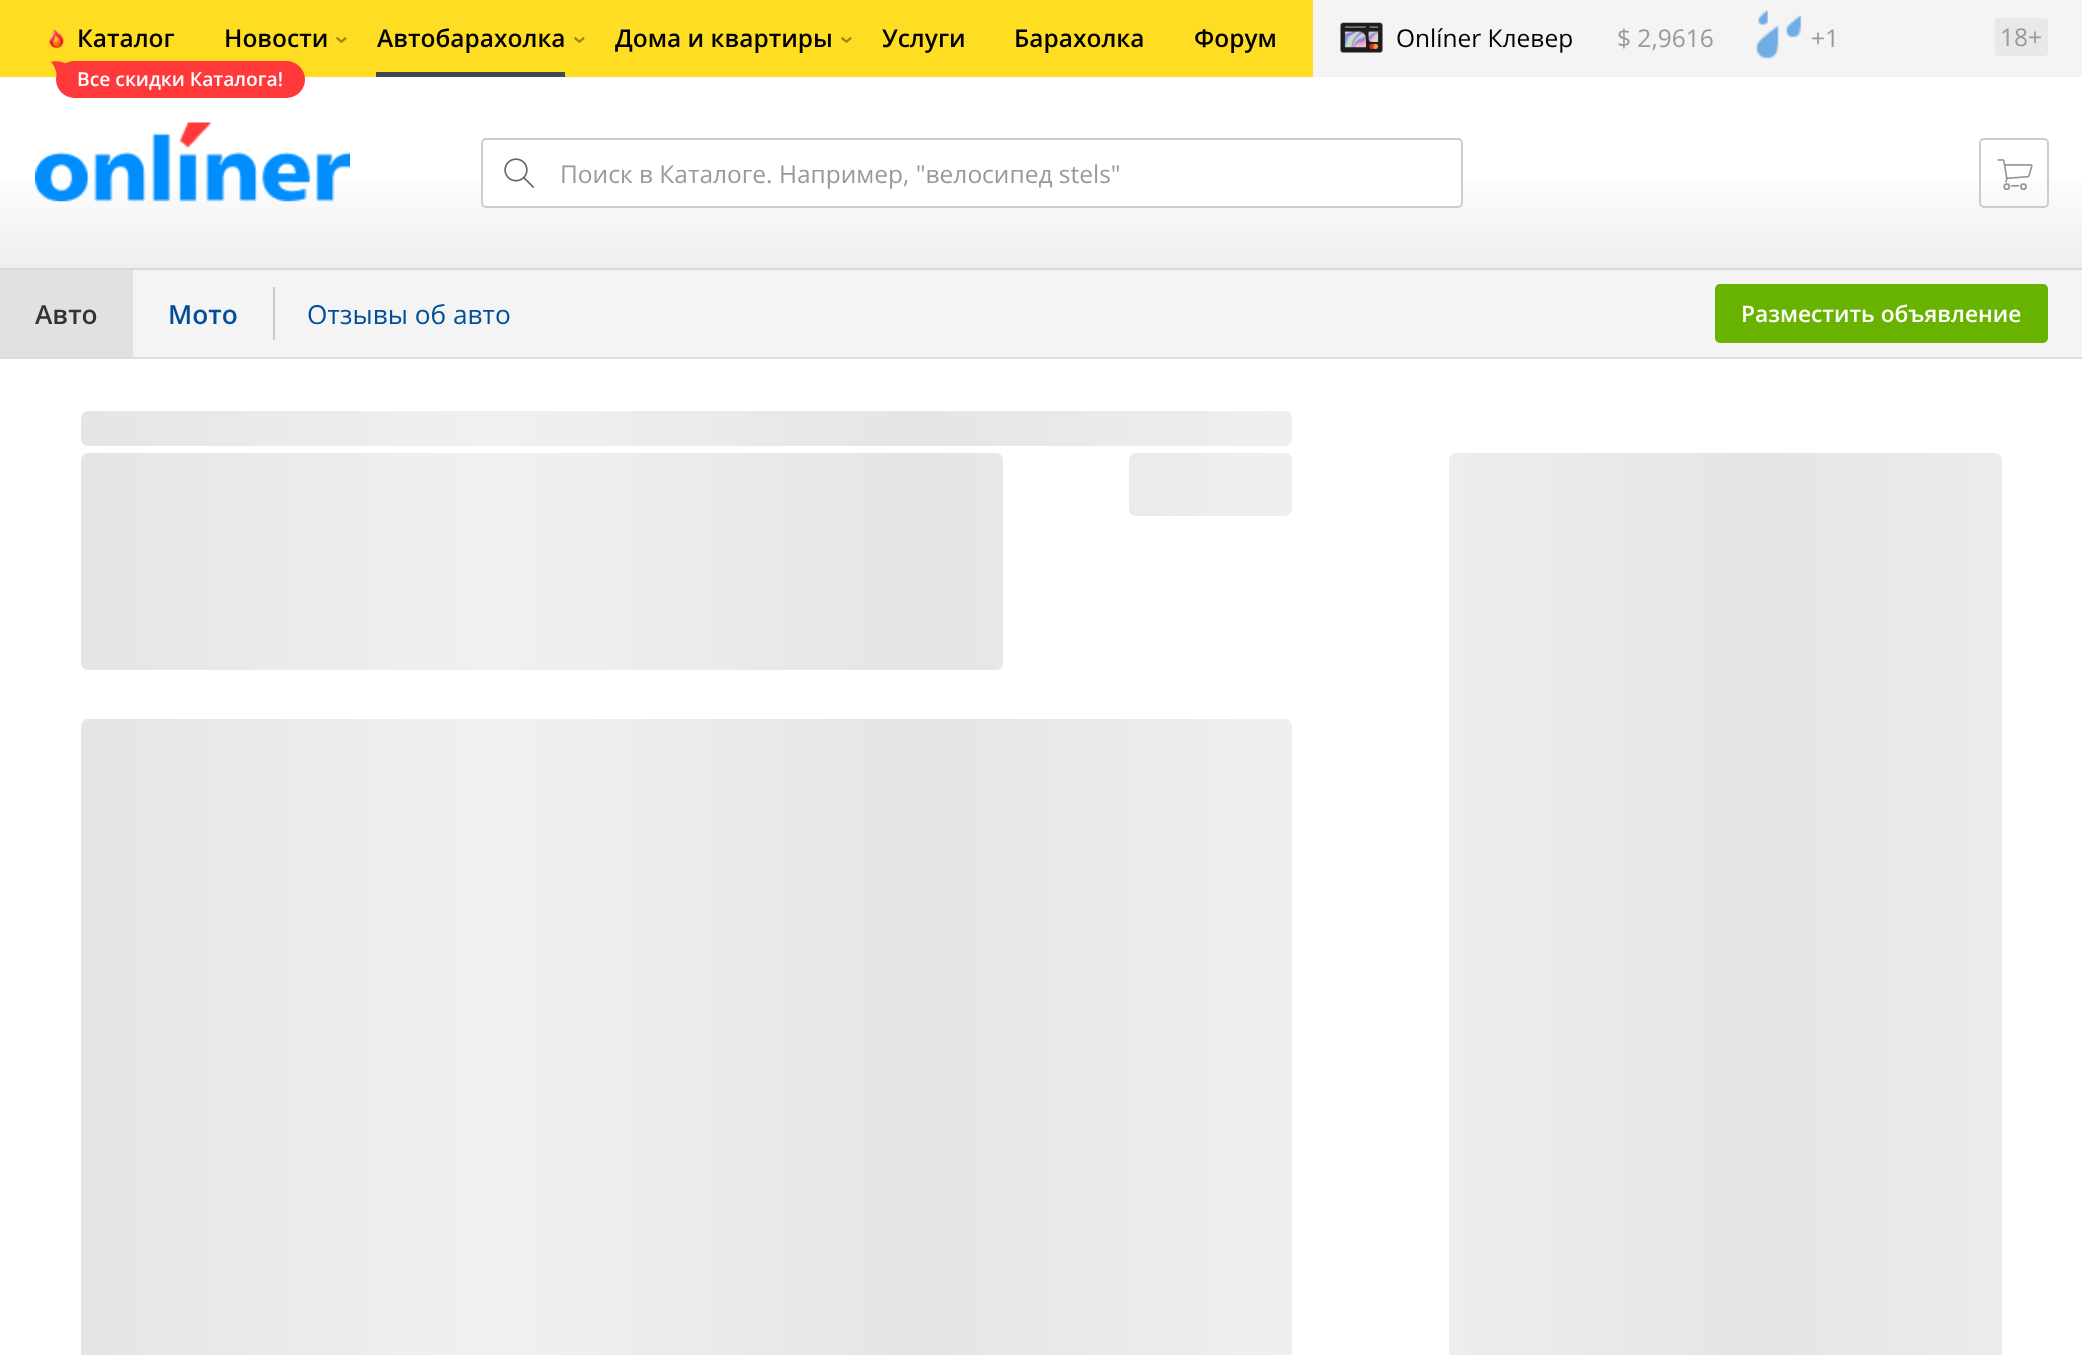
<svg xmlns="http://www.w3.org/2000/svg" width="2082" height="1355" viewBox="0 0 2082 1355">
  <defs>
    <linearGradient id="g1" gradientUnits="userSpaceOnUse" x1="1041" y1="0" x2="1041" y2="333"><stop offset="0" stop-color="#fff"/><stop offset="0.5" stop-color="#fff"/><stop offset="1" stop-color="#e3e3e3"/></linearGradient>
    <linearGradient id="g2" gradientUnits="userSpaceOnUse" x1="77" y1="1154" x2="917" y2="1154"><stop offset="0" stop-color="#fff" stop-opacity="0.1"/><stop offset="0.5" stop-color="#fff" stop-opacity="0.5"/><stop offset="1" stop-color="#fff" stop-opacity="0.1"/></linearGradient>
    <linearGradient id="g3" gradientUnits="userSpaceOnUse" x1="917" y1="1154" x2="1757" y2="1154"><stop offset="0" stop-color="#fff" stop-opacity="0.1"/><stop offset="0.5" stop-color="#fff" stop-opacity="0.5"/><stop offset="1" stop-color="#fff" stop-opacity="0.1"/></linearGradient>
    <linearGradient id="g4" gradientUnits="userSpaceOnUse" x1="1757" y1="1154" x2="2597" y2="1154"><stop offset="0" stop-color="#fff" stop-opacity="0.1"/><stop offset="0.5" stop-color="#fff" stop-opacity="0.5"/><stop offset="1" stop-color="#fff" stop-opacity="0.1"/></linearGradient>
  </defs>
  <rect width="100%" height="100%" fill="#fff"/>
  <path d="M0 181h2082v87H0z" fill="url(#g1)"/>
  <path d="M1313 0h769v77H1313z" fill="#f4f4f4"/>
  <path d="M0 0h1313v77H0z" fill="#fd2"/>
  <image x="49" y="29" width="15" height="20" href="img/1.png"/>
  <rect x="56" y="61" width="249" height="37" rx="18.5" fill="#ff3939"/>
  <image x="51" y="61" width="22" height="15" href="img/2.png"/>
  <path d="M376 72h189v5H376z" fill="#3e4753"/>
  <image x="1340" y="22" width="43" height="31" href="img/3.png"/>
  <image x="1756" y="10" width="46" height="49" href="img/4.png"/>
  <rect x="1995" y="18" width="53" height="38" rx="4" fill="#e8e8e8"/>
  <image x="35" y="122" width="315" height="80" href="img/5.png"/>
  <rect x="481" y="138" width="982" height="70" rx="5" fill="#fff"/>
  <image x="504" y="158" width="31" height="31" href="img/6.png"/>
  <rect x="482" y="139" width="980" height="68" rx="4" fill="none" stroke="#ccc" stroke-width="2"/>
  <rect x="1980" y="139" width="68" height="68" rx="4" fill="none" stroke="#ccc" stroke-width="2"/>
  <image x="1997" y="159" width="36" height="31" href="img/7.png"/>
  <path d="M0 268h2082v2H0z" fill="#d8d8d8"/>
  <path d="M133 270h1949v87H133z" fill="#f4f4f4"/>
  <path d="M0 357h2082v2H0z" fill="#ddd"/>
  <path d="M0 270h133v87H0z" fill="#e1e1e1"/>
  <path d="M273 287h2v53H273z" fill="#ccc"/>
  <rect x="1715" y="284" width="333" height="59" rx="5" fill="#68b300"/>
  <rect x="81" y="411" width="1211" height="35" rx="7" fill="#e2e2e2"/>
  <rect x="81" y="453" width="922" height="217" rx="7" fill="#e2e2e2"/>
  <rect x="1129" y="453" width="163" height="63" rx="7" fill="#e2e2e2"/>
  <rect x="1449" y="453" width="553" height="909" rx="7" fill="#e2e2e2"/>
  <rect x="81" y="719" width="1211" height="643" rx="7" fill="#e2e2e2"/>
  <path d="M81 411h836v944H81z" fill="url(#g2)"/>
  <path d="M917 411h840v944H917z" fill="url(#g3)"/>
  <path d="M1757 453h245v902H1757z" fill="url(#g4)"/>
  <text x="77" y="47" font-family="Open Sans" font-size="24.5" font-weight="600" fill="#000">Каталог</text>
  <text x="77" y="86" font-family="Open Sans" font-size="19.25" font-weight="600" fill="#fff">Все скидки Каталога!</text>
  <text x="224" y="47" font-family="Open Sans" font-size="24.5" font-weight="600" fill="#000">Новости</text>
  <text x="348" y="44" transform="rotate(-90 348 44)" font-family="Open Sans" font-size="24.5" font-weight="600" fill="#998514">‹</text>
  <text x="377" y="47" font-family="Open Sans" font-size="24.5" font-weight="600" fill="#000">Автобарахолка</text>
  <text x="586" y="44" transform="rotate(-90 586 44)" font-family="Open Sans" font-size="24.5" font-weight="600" fill="#998514">‹</text>
  <text x="615" y="47" font-family="Open Sans" font-size="24.5" font-weight="600" fill="#000">Дома и квартиры</text>
  <text x="853" y="44" transform="rotate(-90 853 44)" font-family="Open Sans" font-size="24.5" font-weight="600" fill="#998514">‹</text>
  <g font-family="Open Sans" font-size="24.5" font-weight="600" fill="#000">
    <text x="882" y="47">Услуги</text>
    <text x="1014" y="47">Барахолка</text>
    <text x="1194" y="47">Форум</text>
  </g>
  <text x="1396" y="47" font-family="Open Sans" font-size="24.5" fill="#000">Onlíner Клевер</text>
  <g font-family="Open Sans" font-size="24.5" fill="#999">
    <text x="1617" y="47">$ 2,9616</text>
    <text x="1811" y="47">+1</text>
    <text x="2000" y="46">18+</text>
    <text x="560" y="183">Поиск в Каталоге. Например, "велосипед stels"</text>
  </g>
  <text x="35" y="324" font-family="Open Sans" font-size="26.25" font-weight="600" fill="#333">Авто</text>
  <text x="168" y="324" font-family="Open Sans" font-size="26.25" font-weight="600" fill="#004d99">Мото</text>
  <text x="307" y="324" font-family="Open Sans" font-size="26.25" fill="#004d99">Отзывы об авто</text>
  <text x="1741" y="322" font-family="Open Sans" font-size="22.75" font-weight="600" fill="#fff">Разместить объявление</text>
</svg>
